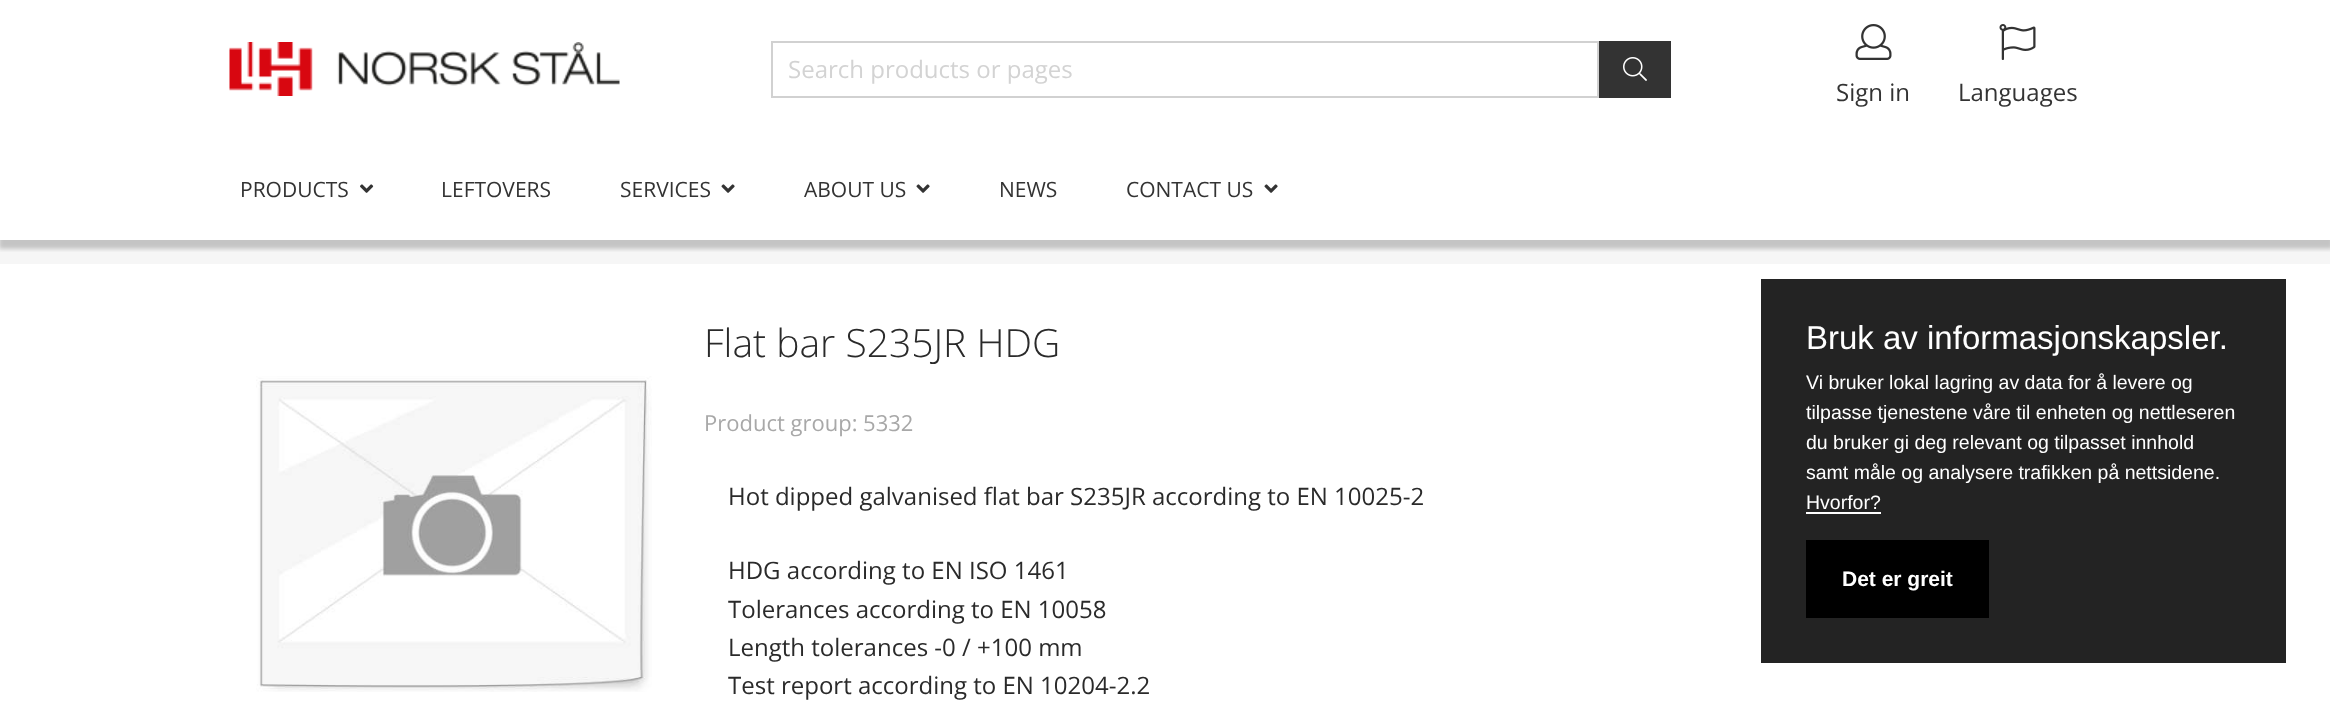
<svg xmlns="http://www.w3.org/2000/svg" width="2330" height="708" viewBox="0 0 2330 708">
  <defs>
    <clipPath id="clip1"><path d="M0 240h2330v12H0z"/></clipPath>
  </defs>
  <rect width="100%" height="100%" fill="#fff"/>
  <path d="M0 240h2330v24H0z" fill="#f6f6f6"/>
  <image x="229" y="42" width="391" height="54" href="img/1.png"/>
  <path d="M772 42h826v55H772z" fill="none" stroke="#d1d1d1" stroke-width="2"/>
  <path d="M1599 41h72v57H1599z" fill="#333"/>
  <image x="1623" y="57" width="24" height="24" href="img/2.png"/>
  <image x="1855" y="24" width="37" height="36" href="img/3.png"/>
  <image x="1999" y="24" width="37" height="36" href="img/4.png"/>
  <g clip-path="url(#clip1)">
    <path d="M-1 144h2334v105H-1z" fill="#00000033" filter="blur(2px)"/>
  </g>
  <image x="360" y="184" width="14" height="9" href="img/5.png"/>
  <image x="721" y="184" width="14" height="9" href="img/6.png"/>
  <image x="916" y="184" width="14" height="9" href="img/6.png"/>
  <image x="1264" y="184" width="14" height="9" href="img/6.png"/>
  <image x="256" y="376" width="396" height="316" href="img/7.png"/>
  <path d="M1761 279h525v384H1761z" fill="#232323"/>
  <path d="M1806 512h75v2H1806z" fill="#fff"/>
  <path d="M1806 540h183v78H1806z" fill="#000"/>
  <text x="788" y="78" font-family="Open Sans" font-size="24" fill="#d3d3d3">Search products or pages</text>
  <g font-family="Open Sans" font-size="24" fill="#333">
    <text x="1836" y="101">Sign in</text>
    <text x="1958" y="101">Languages</text>
  </g>
  <g font-family="Open Sans" font-size="21" fill="#333">
    <text x="240" y="197">PRODUCTS</text>
    <text x="441" y="197">LEFTOVERS</text>
    <text x="620" y="197">SERVICES</text>
    <text x="804" y="197">ABOUT US</text>
    <text x="999" y="197">NEWS</text>
    <text x="1126" y="197">CONTACT US</text>
  </g>
  <text x="704" y="357" font-family="Open Sans" font-size="39" font-weight="300" fill="#2a2a2a">Flat bar S235JR HDG</text>
  <text x="704" y="431" font-family="Open Sans" font-size="22" fill="#a8a8a8">Product group: 5332</text>
  <g font-family="Open Sans" font-size="24" fill="#2a2a2a">
    <text x="728" y="505">Hot dipped galvanised flat bar S235JR according to EN 10025-2</text>
    <text x="728" y="579">HDG according to EN ISO 1461</text>
    <text x="728" y="618">Tolerances according to EN 10058</text>
    <text x="728" y="656">Length tolerances -0 / +100 mm</text>
    <text x="728" y="694">Test report according to EN 10204-2.2</text>
  </g>
  <text x="1806" y="349" font-family="Liberation Sans" font-size="33" fill="#fff">Bruk av informasjonskapsler.</text>
  <g font-family="Liberation Sans" font-size="19.5" fill="#fff">
    <text x="1806" y="389">Vi bruker lokal lagring av data for å levere og</text>
    <text x="1806" y="419">tilpasse tjenestene våre til enheten og nettleseren</text>
    <text x="1806" y="449">du bruker gi deg relevant og tilpasset innhold</text>
    <text x="1806" y="479">samt måle og analysere trafikken på nettsidene.</text>
    <text x="1806" y="509">Hvorfor?</text>
  </g>
  <text x="1842" y="586" font-family="Liberation Sans" font-size="21" font-weight="bold" fill="#fff">Det er greit</text>
</svg>
